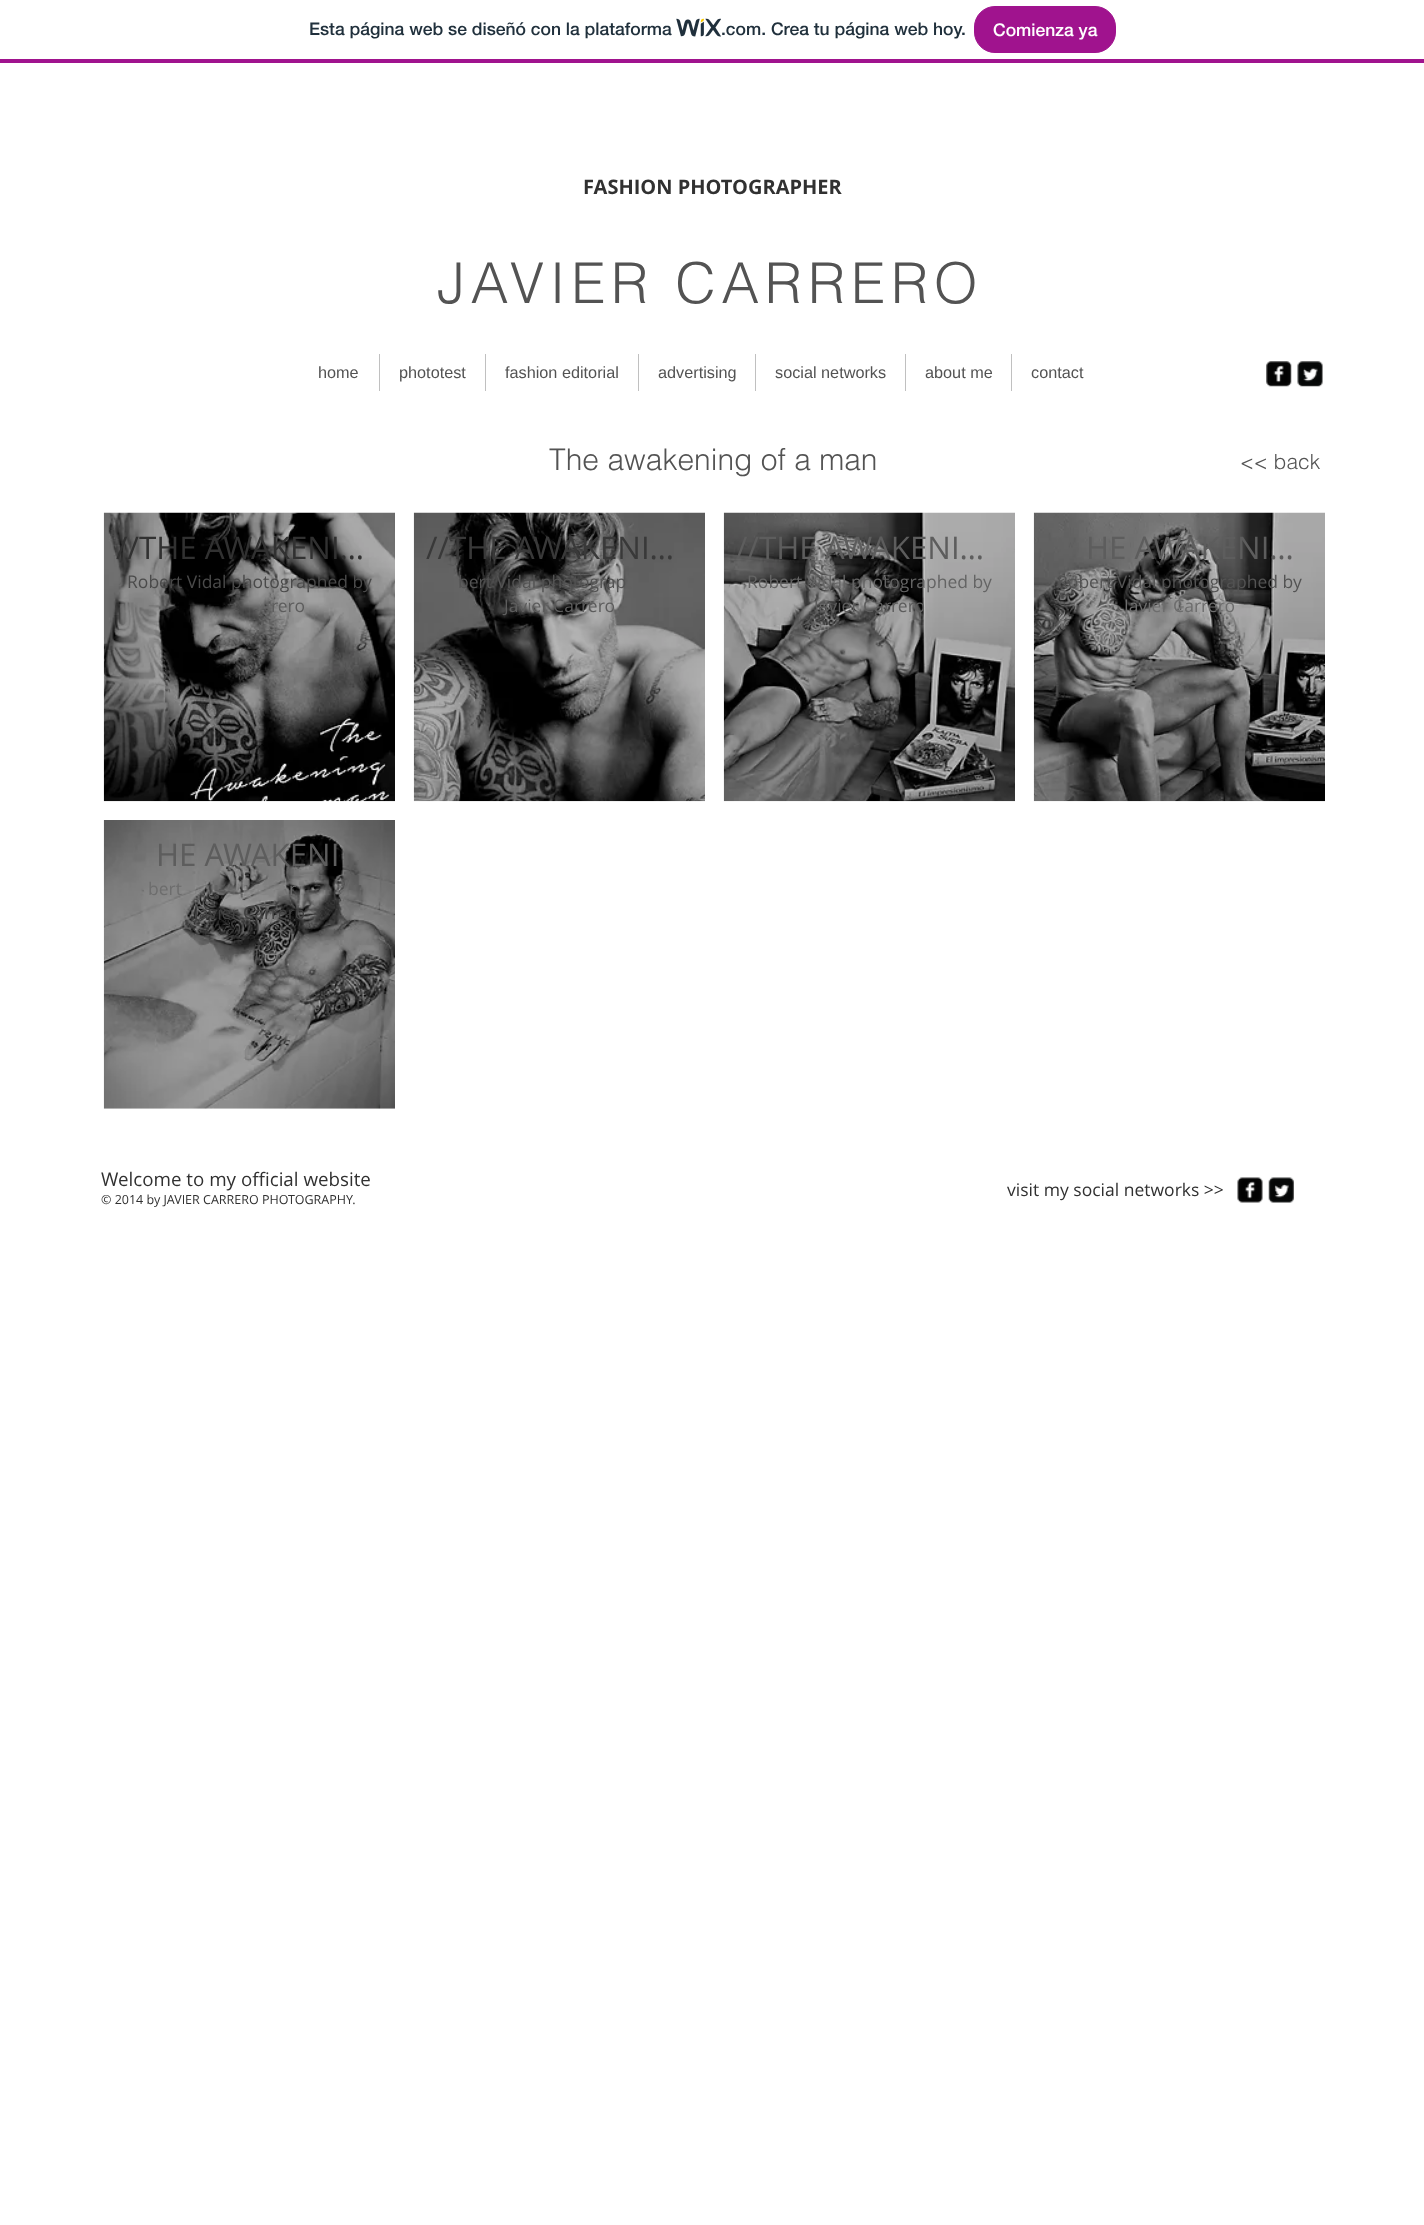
<svg xmlns="http://www.w3.org/2000/svg" width="1424" height="2225" viewBox="0 0 1424 2225">
  <rect width="100%" height="100%" fill="#fff"/>
  <path d="M0 59h1424v4H0z" fill="#a0138e"/>
  <image x="676" y="18" width="45" height="19" href="img/1.png"/>
  <rect x="974.5" y="6.5" width="141" height="46" rx="20.5" fill="#a0138e" stroke="#a0138e"/>
  <path d="M379 354h1v37H379z" fill="#c0c0c0"/>
  <path d="M485 354h1v37H485z" fill="#c0c0c0"/>
  <path d="M638 354h1v37H638z" fill="#c0c0c0"/>
  <path d="M755 354h1v37H755z" fill="#c0c0c0"/>
  <path d="M905 354h1v37H905z" fill="#c0c0c0"/>
  <path d="M1011 354h1v37H1011z" fill="#c0c0c0"/>
  <image x="1266" y="361" width="26" height="26" href="img/2.png"/>
  <image x="1297" y="361" width="26" height="26" href="img/3.png"/>
  <image x="103" y="512" width="292" height="290" href="img/4.png"/>
  <image x="413" y="512" width="292" height="290" href="img/5.png"/>
  <image x="723" y="512" width="292" height="290" href="img/6.png"/>
  <image x="1033" y="512" width="292" height="290" href="img/7.png"/>
  <image x="103" y="820" width="292" height="289" href="img/8.png"/>
  <image x="1237" y="1177" width="26" height="26" href="img/9.png"/>
  <image x="1268" y="1177" width="26" height="26" href="img/10.png"/>
  <g font-family="'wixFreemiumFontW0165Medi'" font-size="17.5" font-weight="500" fill="#20303c">
    <text x="309" y="35">Esta página web se diseñó con la plataforma</text>
    <text x="721" y="35">.com. Crea tu página web hoy.</text>
  </g>
  <text x="993" y="36" font-family="'wixFreemiumFontW0165Medi'" font-size="17.5" font-weight="500" fill="#fff">Comienza ya</text>
  <text x="583" y="194" font-family="Open Sans" font-size="20" font-weight="bold" fill="#313131">FASHION PHOTOGRAPHER</text>
  <text x="437" y="303" font-family="helvetica" font-size="56.25" font-weight="300" letter-spacing="5.6" fill="#535353">JAVIER CARRERO</text>
  <g font-family="Liberation Sans" font-size="16.25" fill="#535353">
    <text x="318" y="378">home</text>
    <text x="399" y="378">phototest</text>
    <text x="505" y="378">fashion editorial</text>
    <text x="658" y="378">advertising</text>
    <text x="775" y="378">social networks</text>
    <text x="925" y="378">about me</text>
    <text x="1031" y="378">contact</text>
  </g>
  <text x="549" y="470" font-family="helvetica" font-size="30" font-weight="300" fill="#535353">The awakening of a man</text>
  <text x="1240" y="469" font-family="helvetica" font-size="21" font-weight="300" fill="#535353">&lt;&lt; back</text>
  <text x="116" y="559" font-family="Open Sans" font-size="31.25" fill="#313131">//THE AWAKENI…</text>
  <text x="127" y="588" font-family="Open Sans" font-size="17.5" fill="#4a4a4a">Robert Vidal photographed by</text>
  <text x="271" y="612" font-family="Open Sans" font-size="17.5" fill="#5d5d5d">rero</text>
  <text x="426" y="559" font-family="Open Sans" font-size="31.25" fill="#393939">//THE AWAKENI…</text>
  <text x="458" y="588" font-family="Open Sans" font-size="17.5" fill="#535353">bert Vidal photograp</text>
  <text x="504" y="612" font-family="Open Sans" font-size="17.5" fill="#5d5d5d">Javier Carrero</text>
  <text x="736" y="559" font-family="Open Sans" font-size="31.25" fill="#5d5d5d">//THE AWAKENI…</text>
  <text x="747" y="588" font-family="Open Sans" font-size="17.5" fill="#646464">Robert Vidal photographed by</text>
  <text x="814" y="612" font-family="Open Sans" font-size="17.5" fill="#5d5d5d">Javier Carrero</text>
  <text x="1086" y="559" font-family="Open Sans" font-size="31.25" fill="#5d5d5d">HE AWAKENI…</text>
  <text x="1057" y="588" font-family="Open Sans" font-size="17.5" fill="#535353">Robert Vidal photographed by</text>
  <text x="1124" y="612" font-family="Open Sans" font-size="17.5" fill="#6d6d6d">Javier Carrero</text>
  <text x="156" y="866" font-family="Open Sans" font-size="31.25" fill="#5d5d5d">HE AWAKENI</text>
  <g font-family="Open Sans" font-size="17.5" fill="#6d6d6d">
    <text x="148" y="895">bert</text>
    <text x="289" y="895">r</text>
  </g>
  <text x="194" y="919" font-family="Open Sans" font-size="17.5" fill="#414141">Javier Carrero</text>
  <text x="101" y="1186" font-family="Open Sans" font-size="18.75" fill="#313131">Welcome to my official website</text>
  <text x="101" y="1204" font-family="Open Sans" font-size="12.5" fill="#313131">© 2014 by JAVIER CARRERO PHOTOGRAPHY.</text>
  <text x="1007" y="1196" font-family="Open Sans" font-size="17.5" fill="#313131">visit my social networks &gt;&gt;</text>
</svg>
